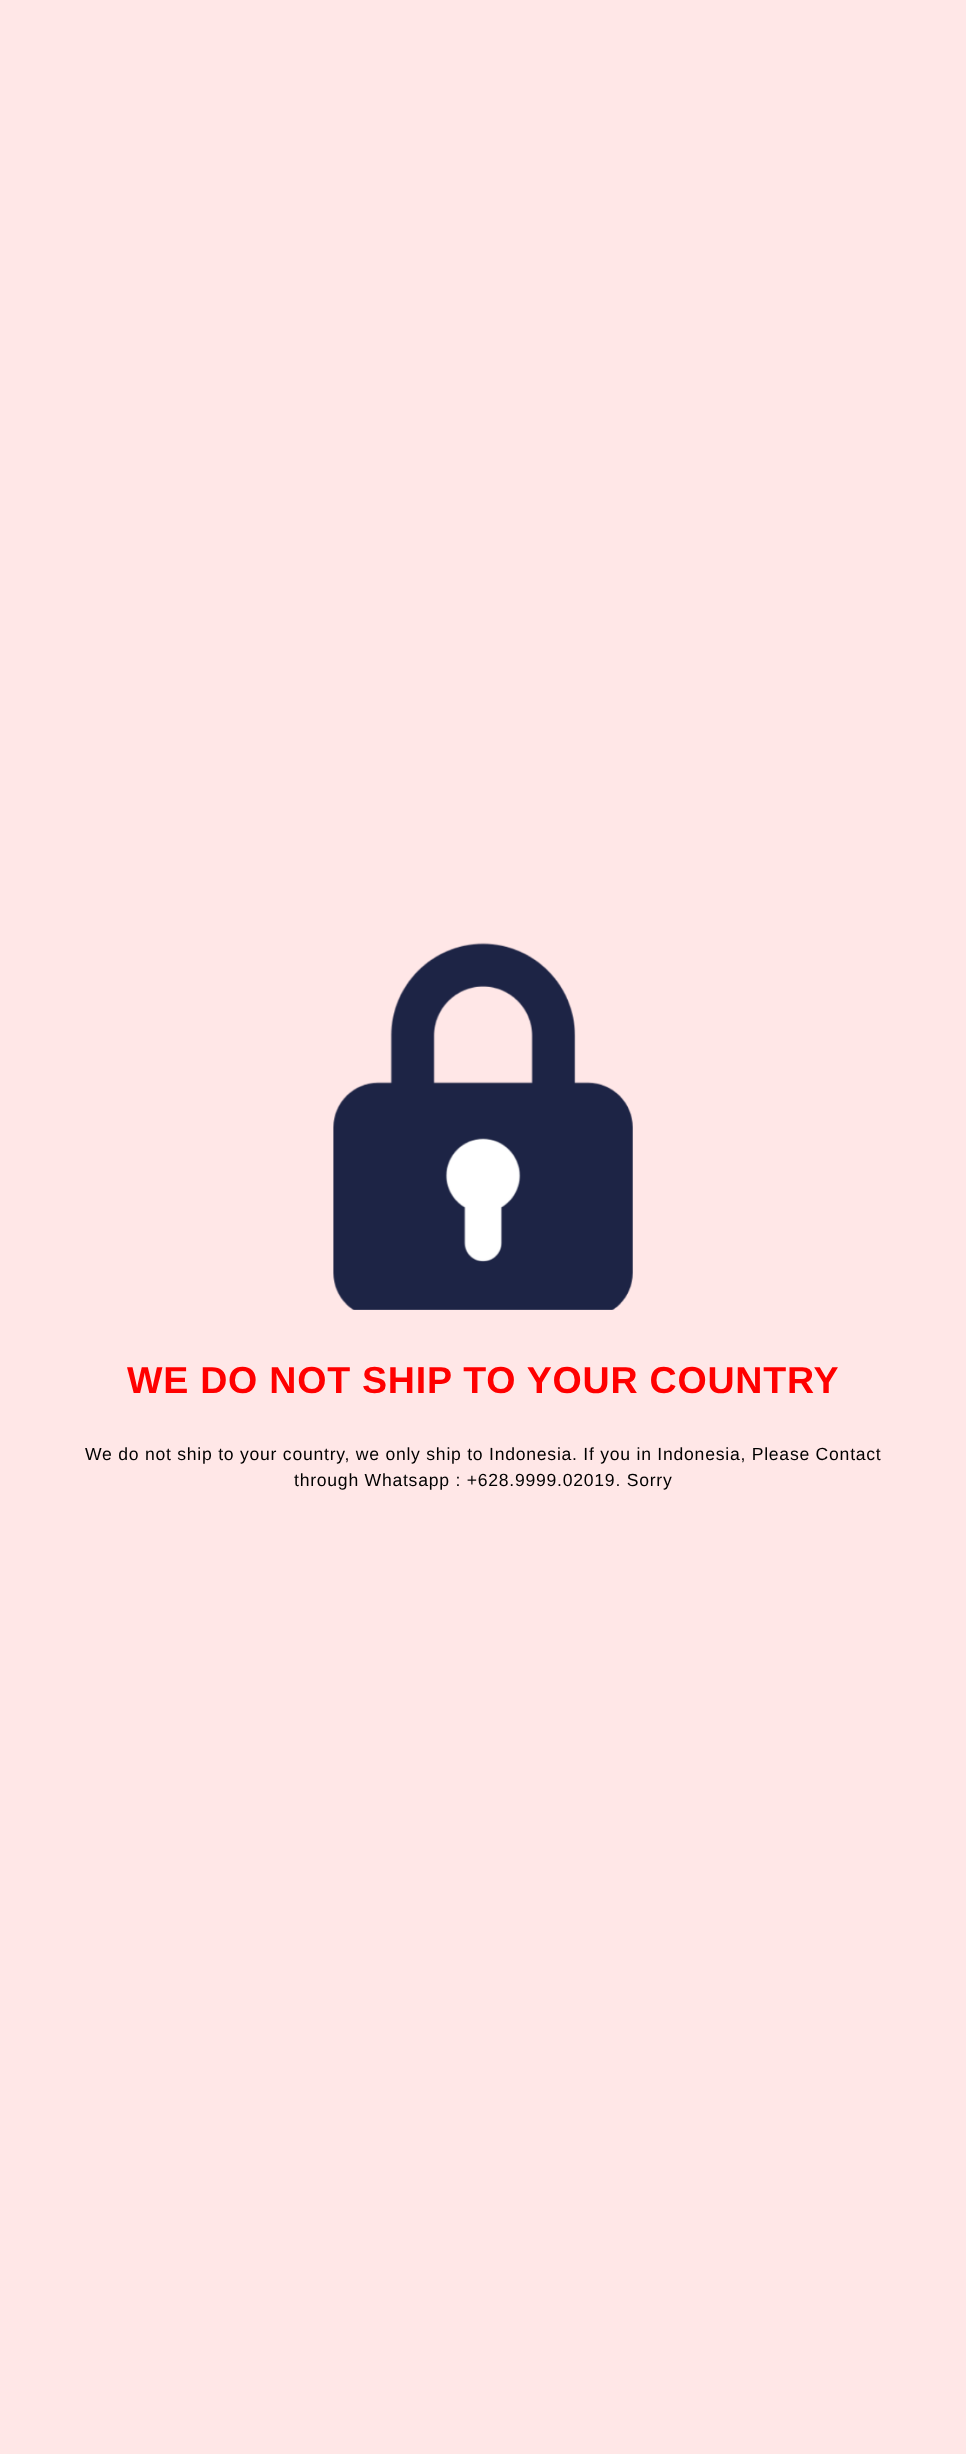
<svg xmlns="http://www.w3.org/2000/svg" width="966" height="2454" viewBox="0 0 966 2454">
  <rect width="100%" height="100%" fill="#ffe7e7"/>
  <image x="333" y="942" width="300" height="368" href="img/1.png"/>
  <text x="127" y="1393" font-family="Liberation Sans" font-size="37.6" font-weight="bold" letter-spacing="0.75" fill="#f00">WE DO NOT SHIP TO YOUR COUNTRY</text>
  <g font-family="Liberation Sans" font-size="17.6" letter-spacing="0.75" fill="#000">
    <text x="85" y="1460">We do not ship to your country, we only ship to Indonesia. If you in Indonesia, Please Contact</text>
    <text x="294" y="1486">through Whatsapp : +628.9999.02019. Sorry</text>
  </g>
</svg>
